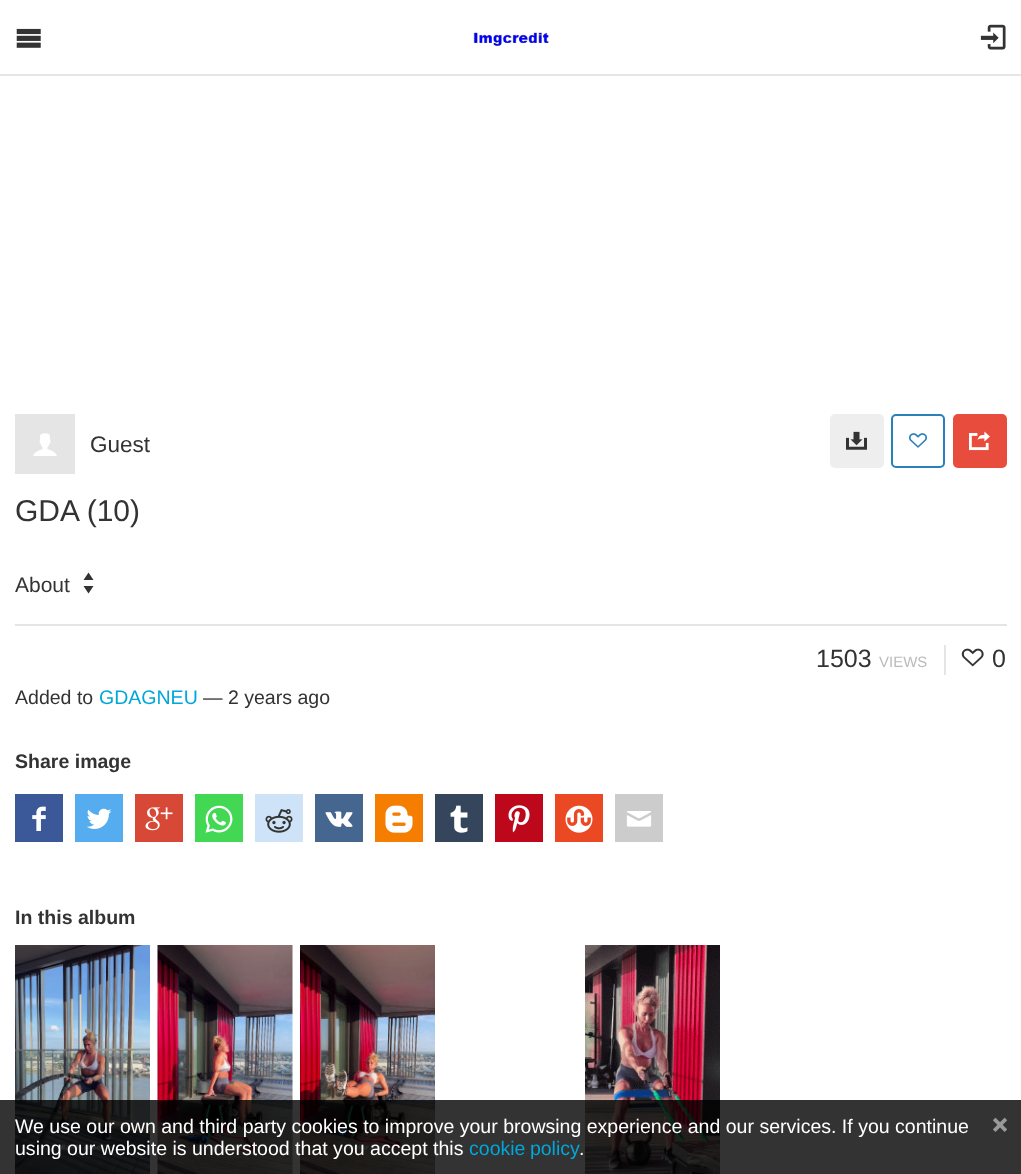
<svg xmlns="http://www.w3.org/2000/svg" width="1021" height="1174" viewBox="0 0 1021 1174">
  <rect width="100%" height="100%" fill="#fff"/>
  <path d="M0 74h1021v2H0z" fill="#e6e6e6"/>
  <image x="16" y="28" width="25" height="20" href="img/1.png"/>
  <image x="473" y="32" width="76" height="14" href="img/2.png"/>
  <image x="980" y="24" width="26" height="26" href="img/3.png"/>
  <path d="M15 414h60v60H15z" fill="#e5e5e5"/>
  <image x="33" y="433" width="24" height="23" href="img/4.png"/>
  <rect x="830" y="414" width="54" height="54" rx="5" fill="#eee"/>
  <image x="846" y="431" width="21" height="19" href="img/5.png"/>
  <rect x="892" y="415" width="52" height="52" rx="4" fill="none" stroke="#2a80b9" stroke-width="2"/>
  <image x="909" y="433" width="18" height="15" href="img/6.png"/>
  <rect x="953" y="414" width="54" height="54" rx="5" fill="#e84c3d"/>
  <image x="969" y="431" width="21" height="20" href="img/7.png"/>
  <path d="M15 624h992v2H15z" fill="#e5e5e5"/>
  <path d="M88.5 572.5L83.5 580H93.5ZM88.5 593.5L93.5 586H83.5Z" fill="#333"/>
  <path d="M944 645h2v30H944z" fill="#e5e5e5"/>
  <image x="961" y="648" width="23" height="19" href="img/8.png"/>
  <path d="M15 794h48v48H15z" fill="#3b5998"/>
  <image x="32" y="806" width="14" height="25" href="img/9.png"/>
  <path d="M75 794h48v48H75z" fill="#55acee"/>
  <image x="86" y="808" width="26" height="21" href="img/10.png"/>
  <path d="M135 794h48v48H135z" fill="#d74836"/>
  <image x="145" y="807" width="28" height="24" href="img/11.png"/>
  <path d="M195 794h48v48H195z" fill="#43d854"/>
  <image x="205" y="805" width="28" height="28" href="img/12.png"/>
  <path d="M255 794h48v48H255z" fill="#cee3f8"/>
  <image x="265" y="809" width="28" height="24" href="img/13.png"/>
  <path d="M315 794h48v48H315z" fill="#45668e"/>
  <image x="325" y="811" width="28" height="16" href="img/14.png"/>
  <path d="M375 794h48v48H375z" fill="#f57d00"/>
  <image x="385" y="805" width="28" height="28" href="img/15.png"/>
  <path d="M435 794h48v48H435z" fill="#35465c"/>
  <image x="450" y="805" width="18" height="28" href="img/16.png"/>
  <path d="M495 794h48v48H495z" fill="#bd081c"/>
  <image x="508" y="805" width="22" height="28" href="img/17.png"/>
  <path d="M555 794h48v48H555z" fill="#eb4924"/>
  <image x="565" y="805" width="28" height="28" href="img/18.png"/>
  <path d="M615 794h48v48H615z" fill="#ccc"/>
  <image x="626" y="811" width="26" height="16" href="img/19.png"/>
  <image x="15" y="945" width="135" height="229" href="img/20.png"/>
  <image x="157" y="945" width="136" height="229" href="img/21.png"/>
  <image x="300" y="945" width="135" height="229" href="img/22.png"/>
  <image x="585" y="945" width="135" height="229" href="img/23.png"/>
  <path d="M0 1100h1021v74H0z" fill="#000000cc"/>
  <image x="993" y="1117" width="14" height="15" href="img/24.png"/>
  <text x="90" y="452" font-family="Liberation Sans" font-size="22.5" fill="#333">Guest</text>
  <text x="15" y="521" font-family="Liberation Sans" font-size="30" fill="#333">GDA (10)</text>
  <text x="15" y="592" font-family="Liberation Sans" font-size="21" fill="#333">About</text>
  <text x="816" y="667" font-family="Liberation Sans" font-size="25" fill="#333">1503</text>
  <text x="879" y="667" font-family="Liberation Sans" font-size="15" fill="#bbb">VIEWS</text>
  <text x="992" y="667" font-family="Liberation Sans" font-size="25" fill="#333">0</text>
  <text x="15" y="704" font-family="Liberation Sans" font-size="19.55" fill="#333">Added to</text>
  <text x="99" y="704" font-family="Liberation Sans" font-size="19.55" fill="#00a7da">GDAGNEU</text>
  <text x="203" y="704" font-family="Liberation Sans" font-size="19.55" fill="#333">— 2 years ago</text>
  <g font-family="Liberation Sans" font-size="19.55" font-weight="bold" fill="#333">
    <text x="15" y="768">Share image</text>
    <text x="15" y="924">In this album</text>
  </g>
  <g font-family="Liberation Sans" font-size="19.55" fill="#fff">
    <text x="15" y="1133">We use our own and third party cookies to improve your browsing experience and our services. If you continue</text>
    <text x="15" y="1155">using our website is understood that you accept this</text>
  </g>
  <text x="469" y="1155" word-spacing="-1" font-family="Liberation Sans" font-size="19.55" fill="#00a7da">cookie policy</text>
  <text x="579" y="1155" font-family="Liberation Sans" font-size="19.55" fill="#fff">.</text>
</svg>
